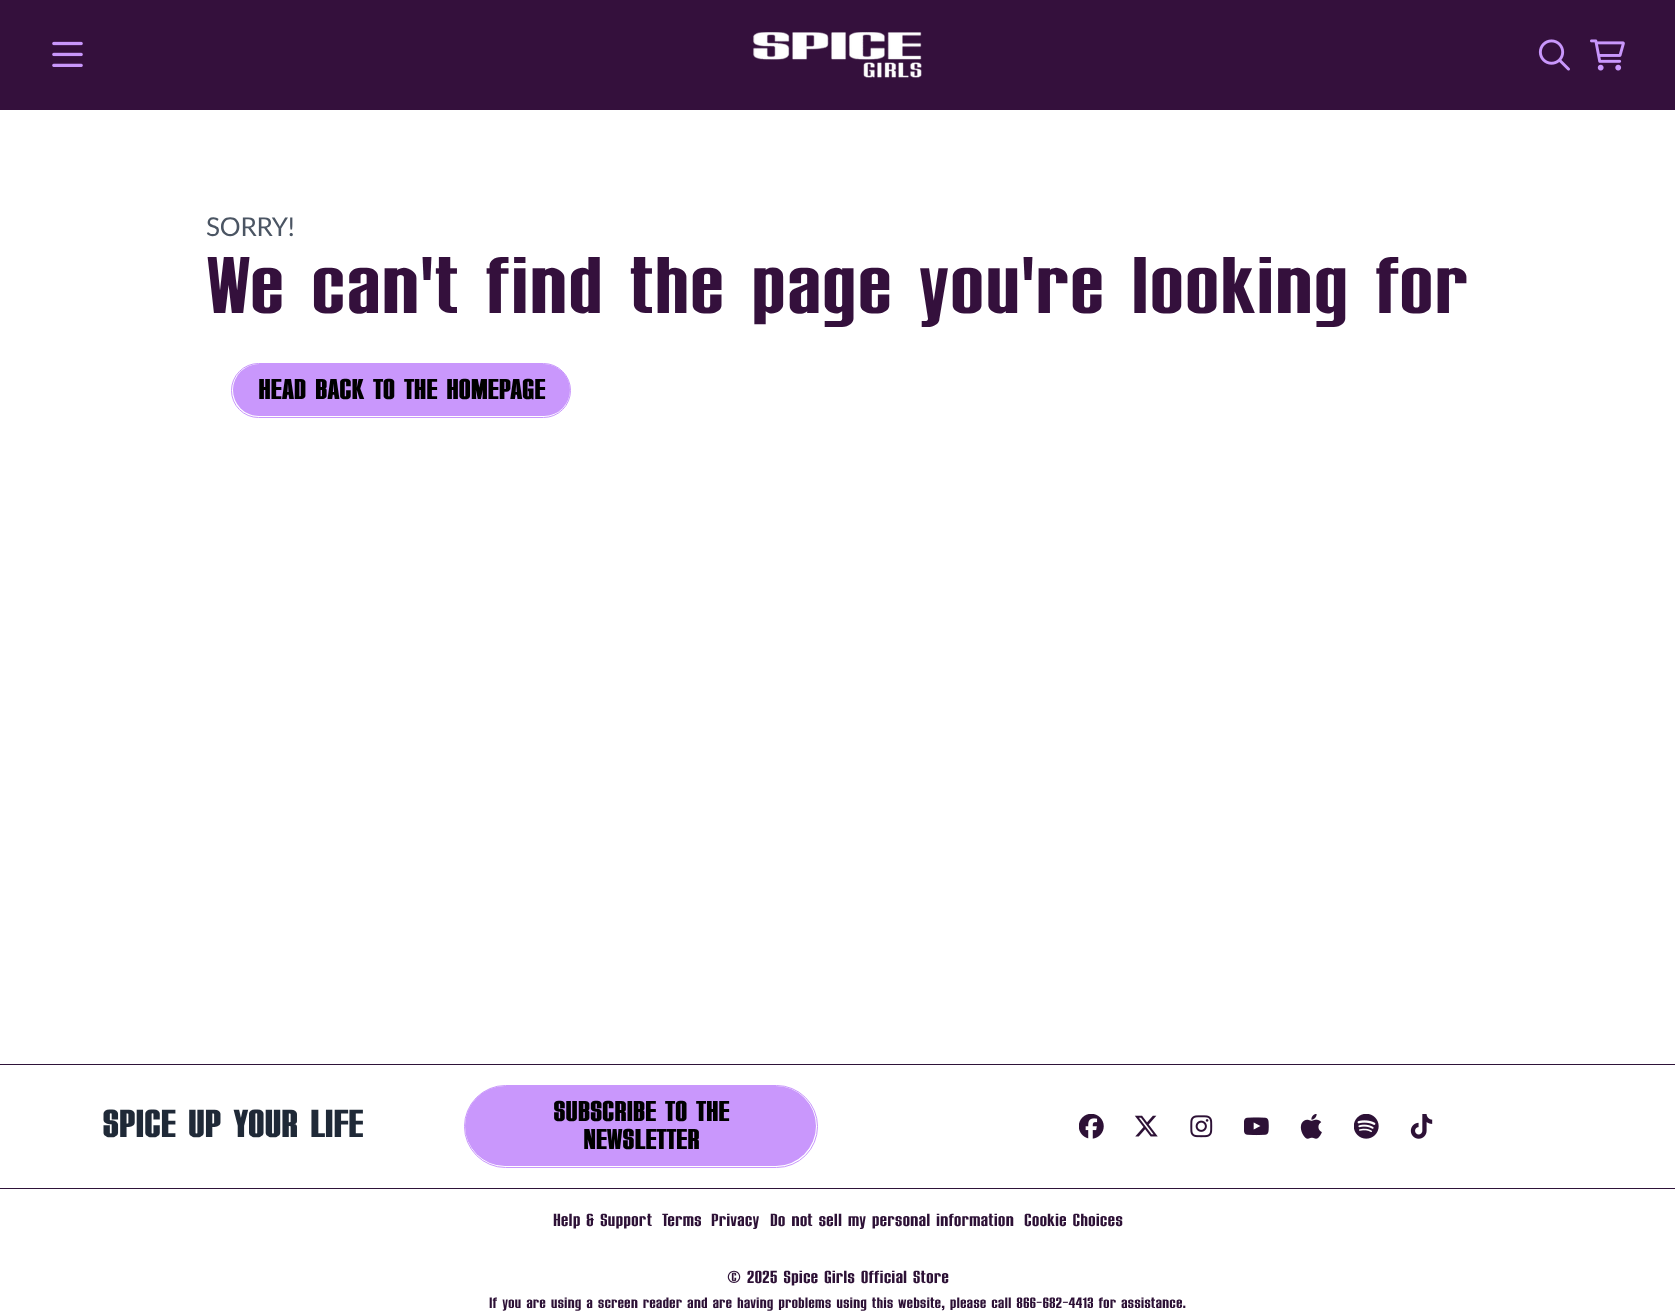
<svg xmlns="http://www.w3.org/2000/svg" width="1675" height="1313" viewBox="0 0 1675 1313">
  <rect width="100%" height="100%" fill="#fff"/>
  <path d="M0 0h1675v110H0z" fill="#34103c"/>
  <image x="52" y="41" width="31" height="26" href="img/1.png"/>
  <image x="753" y="32" width="169" height="46" href="img/2.png"/>
  <image x="1538" y="39" width="32" height="32" href="img/3.png"/>
  <image x="1590" y="39" width="35" height="32" href="img/4.png"/>
  <rect x="233" y="364" width="337" height="52" rx="26" fill="#c997fc"/>
  <rect x="231.5" y="363.5" width="339" height="54" rx="27" fill="none" stroke="#c997fc"/>
  <path d="M0 1064h1675v1H0z" fill="#2e1339"/>
  <rect x="465" y="1086" width="351" height="80" rx="40" fill="#c997fc"/>
  <rect x="464.5" y="1085.5" width="353" height="82" rx="41" fill="none" stroke="#c997fc"/>
  <image x="1079" y="1114" width="25" height="25" href="img/5.png"/>
  <image x="1134" y="1115" width="24" height="22" href="img/6.png"/>
  <image x="1190" y="1115" width="23" height="23" href="img/7.png"/>
  <image x="1244" y="1117" width="25" height="19" href="img/8.png"/>
  <image x="1300" y="1114" width="22" height="25" href="img/9.png"/>
  <image x="1354" y="1114" width="25" height="25" href="img/10.png"/>
  <image x="1410" y="1114" width="23" height="25" href="img/11.png"/>
  <path d="M0 1188h1675v1H0z" fill="#2e1339"/>
  <text x="206" y="236" font-family="Lato" font-size="26" letter-spacing="-0.25" fill="#4b5563">SORRY!</text>
  <text x="206" y="313" font-family="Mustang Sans" font-size="80" fill="#34103c">We can't find the page you're looking for</text>
  <text x="258" y="399" font-family="Mustang Sans" font-size="27.5" font-weight="bold" fill="#000">HEAD BACK TO THE HOMEPAGE</text>
  <text x="102" y="1137" font-family="Mustang Sans" font-size="37.5" font-weight="bold" fill="#1f2937">SPICE UP YOUR LIFE</text>
  <g font-family="Mustang Sans" font-size="27.5" font-weight="bold" fill="#000">
    <text x="553" y="1121">SUBSCRIBE TO THE</text>
    <text x="583" y="1149">NEWSLETTER</text>
  </g>
  <g font-family="Mustang Sans" font-size="17.5" fill="#2d1136">
    <text x="553" y="1226">Help &amp; Support</text>
    <text x="662" y="1226">Terms</text>
    <text x="711" y="1226">Privacy</text>
    <text x="770" y="1226">Do not sell my personal information</text>
    <text x="1024" y="1226">Cookie Choices</text>
    <text x="727" y="1283">© 2025 Spice Girls Official Store</text>
  </g>
  <text x="489" y="1308" font-family="Mustang Sans" font-size="15" fill="#2d1136">If you are using a screen reader and are having problems using this website, please call 866-682-4413 for assistance.</text>
</svg>
